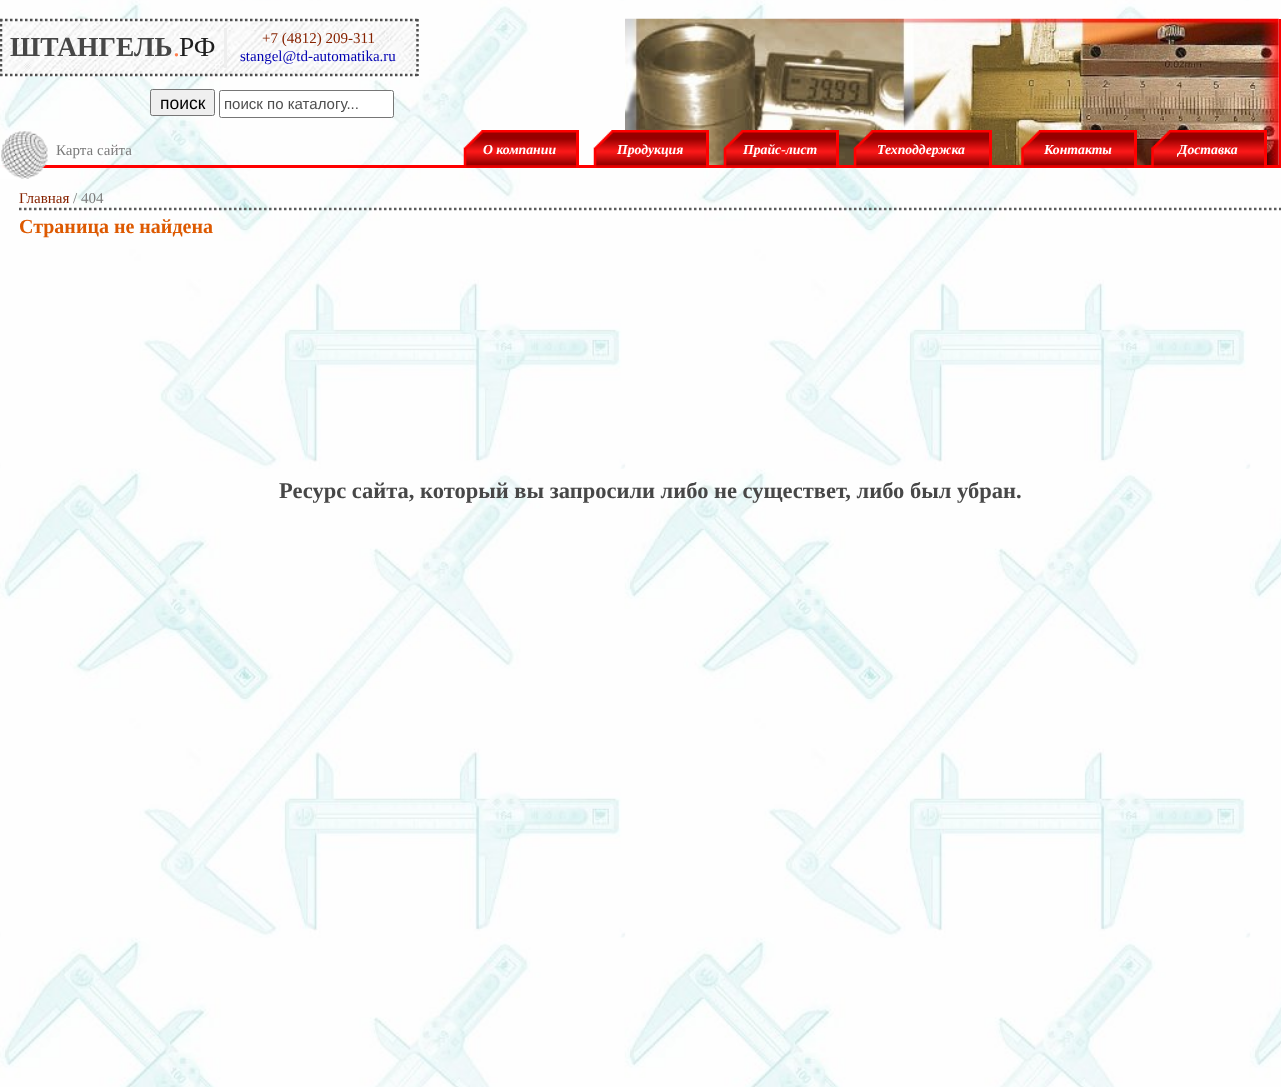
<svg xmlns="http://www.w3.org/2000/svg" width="1281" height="1087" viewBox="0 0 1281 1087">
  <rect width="100%" height="100%" fill="#fff"/>
  <image x="0" y="0" width="1281" height="1087" href="img/1.png"/>
  <image x="625" y="18" width="654" height="147" href="img/2.png"/>
  <path d="M1279 19h2v149H1279z" fill="#f00"/>
  <path d="M0 165h1281v3H0z" fill="#f00"/>
  <image x="0" y="18" width="419" height="59" href="img/3.png"/>
  <path d="M0 20H419" fill="none" stroke="#4f4f4f" stroke-width="2.5" stroke-dasharray="2.5 2.5"/>
  <path d="M417.5 19V76" fill="none" stroke="#4f4f4f" stroke-width="2.5" stroke-dasharray="2.5 2.5"/>
  <path d="M0 75H419" fill="none" stroke="#4f4f4f" stroke-width="2.5" stroke-dasharray="2.5 2.5"/>
  <path d="M1 19V76" fill="none" stroke="#4f4f4f" stroke-width="2.5" stroke-dasharray="2.5 2.5"/>
  <path d="M224 28h3v40H224z" fill="#eee"/>
  <rect x="150.5" y="89.5" width="64" height="26" rx="2" fill="#efefef" stroke="#767676"/>
  <rect x="219.5" y="90.5" width="174" height="27" rx="2" fill="#fff" stroke="#767676"/>
  <image x="0" y="131" width="48" height="48" href="img/4.png"/>
  <image x="463" y="130" width="113" height="38" href="img/5.png"/>
  <path d="M576 130h3v38H576z" fill="#f00"/>
  <image x="593" y="130" width="113" height="38" href="img/6.png"/>
  <path d="M706 130h3v38H706z" fill="#f00"/>
  <image x="723" y="130" width="113" height="38" href="img/7.png"/>
  <path d="M836 130h3v38H836z" fill="#f00"/>
  <image x="853" y="130" width="136" height="38" href="img/8.png"/>
  <path d="M989 130h3v38H989z" fill="#f00"/>
  <image x="1021" y="130" width="113" height="38" href="img/9.png"/>
  <path d="M1134 130h3v38H1134z" fill="#f00"/>
  <image x="1151" y="130" width="113" height="38" href="img/10.png"/>
  <path d="M1264 130h3v38H1264z" fill="#f00"/>
  <path d="M19 209H1281" fill="none" stroke="#5b5b5b" stroke-width="2.5" stroke-dasharray="2.5 2.5"/>
  <text x="10" y="56" font-family="Liberation Serif" font-size="27.5" font-weight="bold" fill="#474747">ШТАНГЕЛЬ</text>
  <text x="173" y="56" font-family="Liberation Serif" font-size="27.5" fill="#ff7e4d">.</text>
  <text x="179" y="56" font-family="Liberation Serif" font-size="27.5" fill="#1e1e1e">РФ</text>
  <text x="262" y="43" font-family="Liberation Serif" font-size="15" fill="#862200">+7 (4812) 209-311</text>
  <text x="240" y="61" font-family="Liberation Serif" font-size="15" fill="#0001b2">stangel@td-automatika.ru</text>
  <text x="160" y="109" font-family="Liberation Sans" font-size="17.5" fill="#000">поиск</text>
  <text x="224" y="109" font-family="Liberation Sans" font-size="15" fill="#4e4e4e">поиск по каталогу...</text>
  <text x="56" y="155" font-family="Liberation Serif" font-size="15" fill="#7b7b7b">Карта сайта</text>
  <g font-family="Liberation Serif" font-size="13.75" font-weight="bold" font-style="italic" fill="#fff">
    <text x="483" y="154">О компании</text>
    <text x="617" y="154">Продукция</text>
    <text x="743" y="154">Прайс-лист</text>
    <text x="877" y="154">Техподдержка</text>
    <text x="1044" y="154">Контакты</text>
    <text x="1178" y="154">Доставка</text>
  </g>
  <text x="19" y="203" font-family="Liberation Serif" font-size="15" fill="#862200">Главная</text>
  <text x="73" y="203" font-family="Liberation Serif" font-size="15" fill="#7b7b7b">/ 404</text>
  <text x="19" y="233" font-family="Liberation Serif" font-size="20" font-weight="bold" fill="#dd5900">Страница не найдена</text>
  <text x="279" y="498" font-family="Liberation Serif" font-size="22.5" font-weight="bold" fill="#474747">Ресурс сайта, который вы запросили либо не существет, либо был убран.</text>
</svg>
